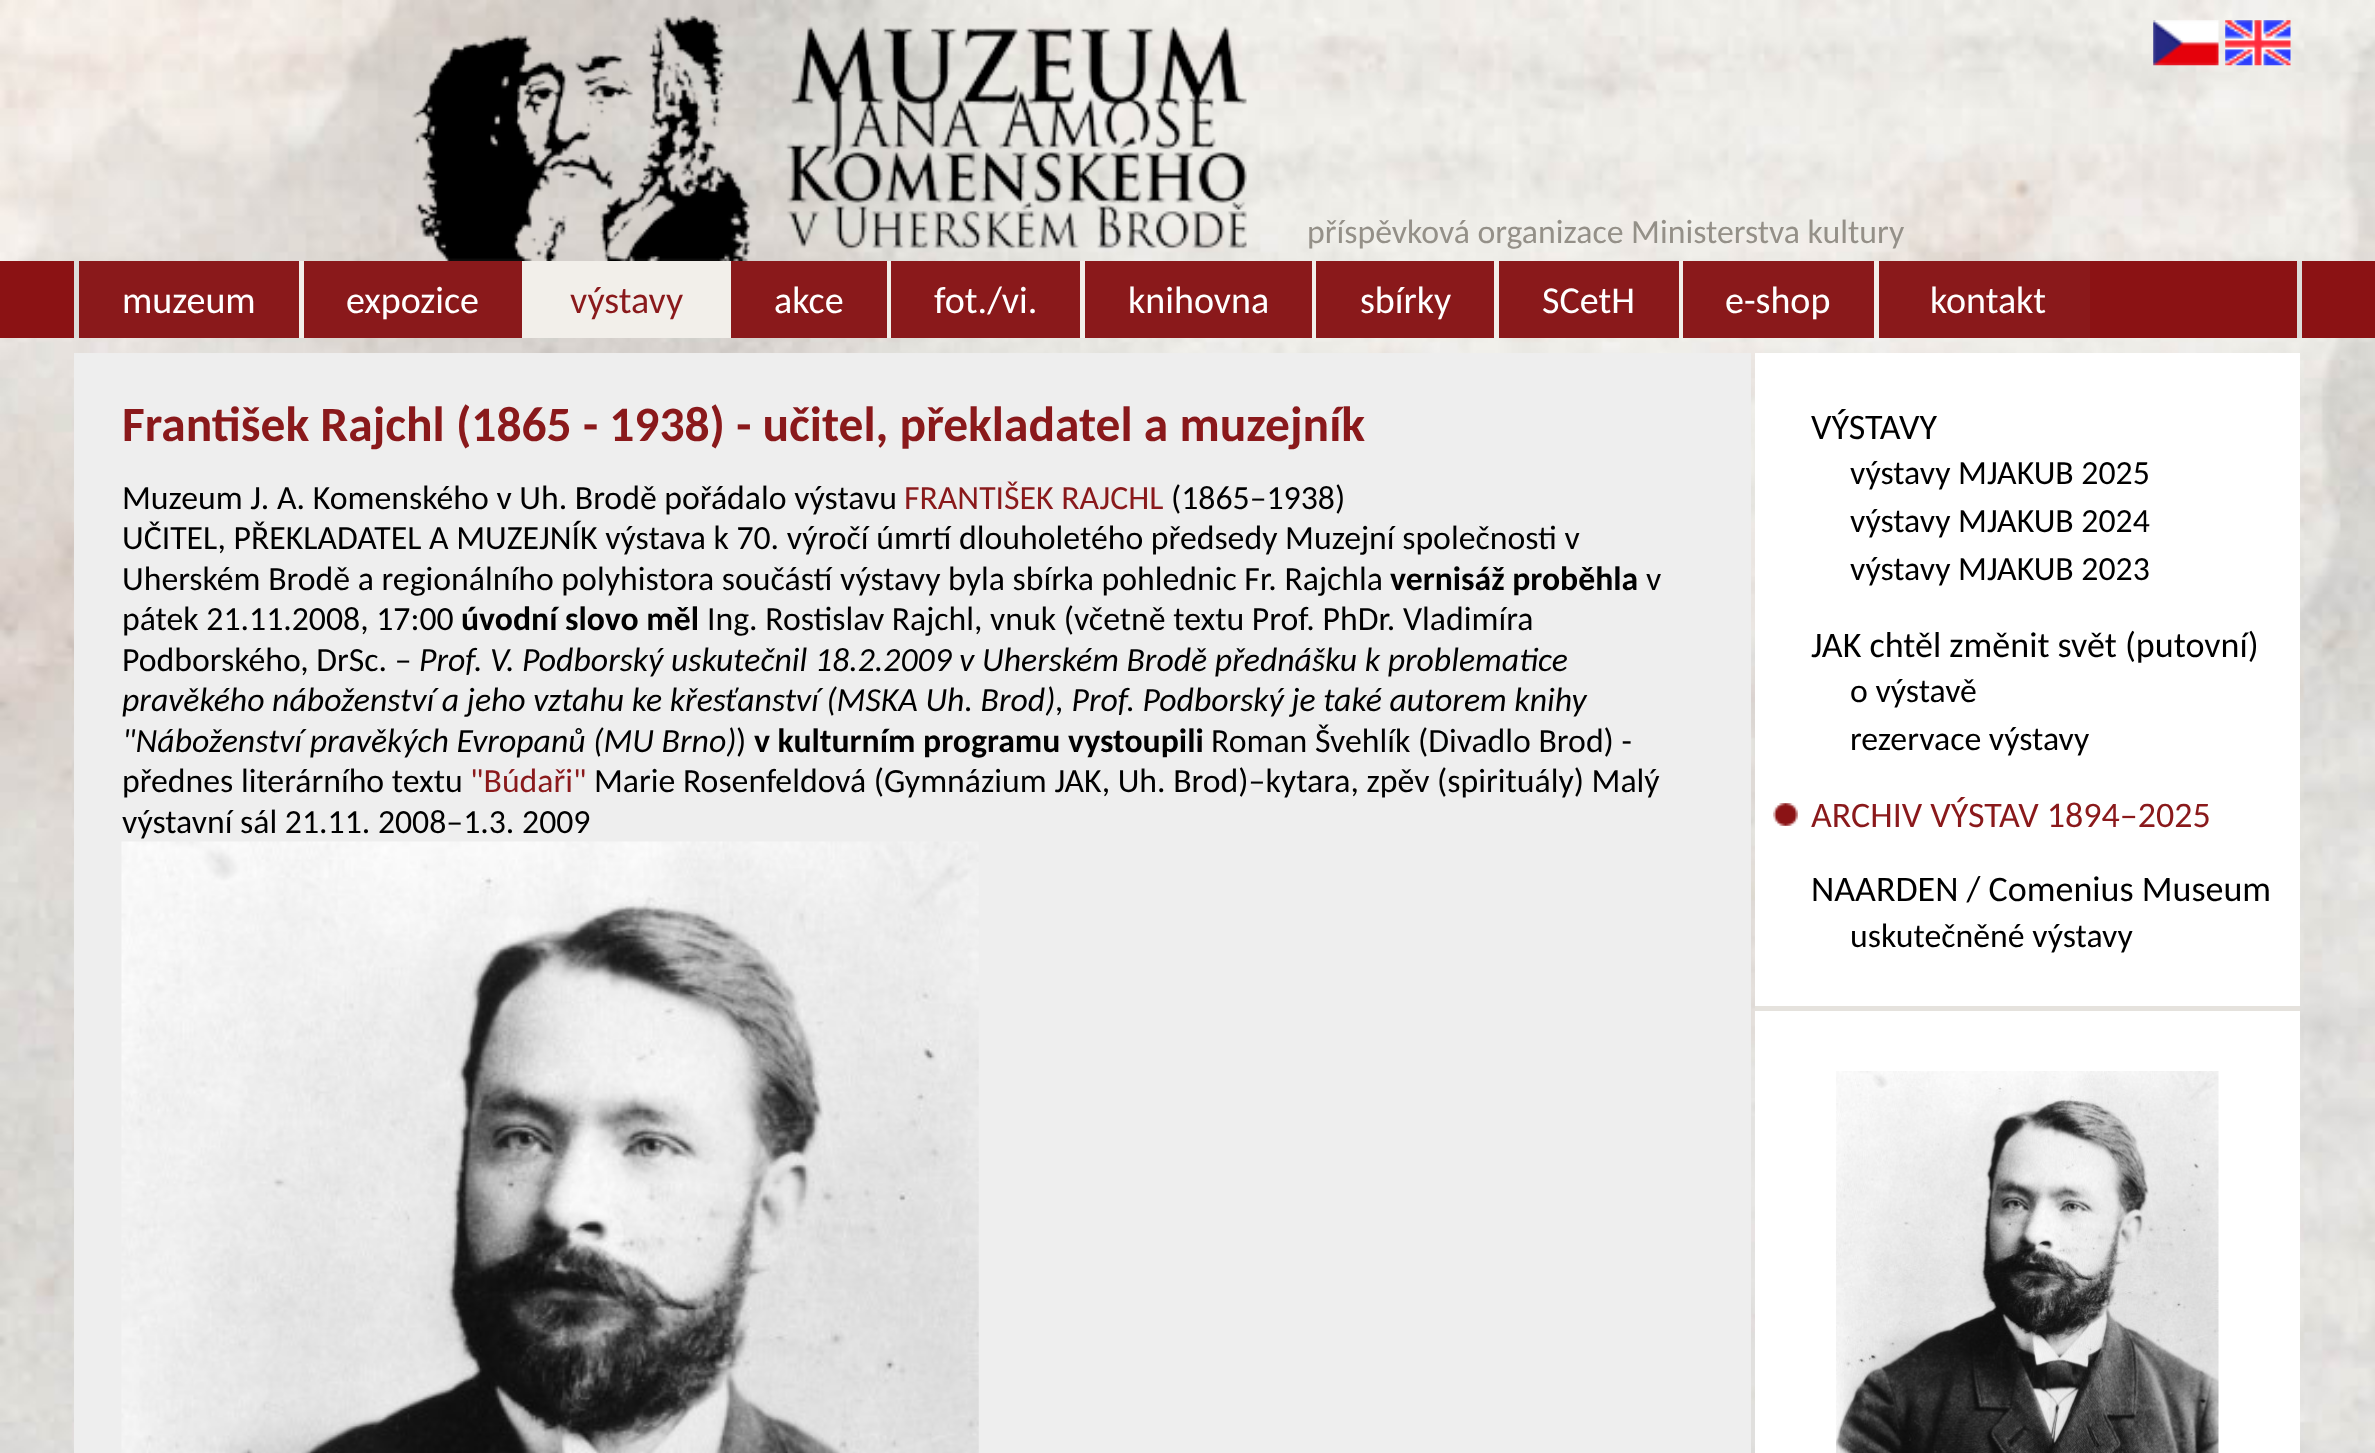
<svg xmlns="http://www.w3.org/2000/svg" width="2375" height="1453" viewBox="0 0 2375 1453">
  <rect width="100%" height="100%" fill="#fff"/>
  <image x="0" y="0" width="2375" height="1453" href="img/1.png"/>
  <path d="M0 261h2375v77H0z" fill="#8b1214"/>
  <image x="411" y="15" width="836" height="246" href="img/2.png"/>
  <image x="2153" y="20" width="66" height="46" href="img/3.png"/>
  <image x="2225" y="20" width="66" height="46" href="img/4.png"/>
  <path d="M2297 261h5v77H2297z" fill="#dcdedb"/>
  <path d="M74 261h5v77H74z" fill="#dcdedb"/>
  <path d="M79 261h220v77H79z" fill="#8a191b"/>
  <path d="M299 261h5v77H299z" fill="#f2efea"/>
  <path d="M304 261h218v77H304z" fill="#8a191b"/>
  <path d="M522 261h209v77H522z" fill="#f2efea"/>
  <path d="M731 261h156v77H731z" fill="#8a191b"/>
  <path d="M887 261h4v77H887z" fill="#f2efea"/>
  <path d="M891 261h189v77H891z" fill="#8a191b"/>
  <path d="M1080 261h5v77H1080z" fill="#f2efea"/>
  <path d="M1085 261h227v77H1085z" fill="#8a191b"/>
  <path d="M1312 261h4v77H1312z" fill="#f2efea"/>
  <path d="M1316 261h178v77H1316z" fill="#8a191b"/>
  <path d="M1494 261h5v77H1494z" fill="#f2efea"/>
  <path d="M1499 261h180v77H1499z" fill="#8a191b"/>
  <path d="M1679 261h4v77H1679z" fill="#f2efea"/>
  <path d="M1683 261h191v77H1683z" fill="#8a191b"/>
  <path d="M1874 261h5v77H1874z" fill="#f2efea"/>
  <path d="M1879 261h211v77H1879z" fill="#8a191b"/>
  <path d="M74 353h1677v1100H74z" fill="#eee"/>
  <image x="121" y="841" width="858" height="612" href="img/5.png"/>
  <path d="M1755 353h545v653H1755z" fill="#fff"/>
  <image x="1773" y="803" width="25" height="23" href="img/6.png"/>
  <path d="M1755 1011h545v442H1755z" fill="#fff"/>
  <path d="M1755 1006h545v5H1755z" fill="#e5e2dd"/>
  <image x="1836" y="1071" width="383" height="382" href="img/7.png"/>
  <text x="1307" y="243" font-family="Carlito" font-size="33.75" fill="#949088">příspěvková organizace Ministerstva kultury</text>
  <g font-family="Carlito" font-size="38" fill="#fff">
    <text x="122" y="313">muzeum</text>
    <text x="346" y="313">expozice</text>
  </g>
  <text x="570" y="313" font-family="Carlito" font-size="38" fill="#8a191b">výstavy</text>
  <g font-family="Carlito" font-size="38" fill="#fff">
    <text x="774" y="313">akce</text>
    <text x="934" y="313">fot./vi.</text>
    <text x="1128" y="313">knihovna</text>
    <text x="1360" y="313">sbírky</text>
    <text x="1542" y="313">SCetH</text>
    <text x="1725" y="313">e-shop</text>
    <text x="1930" y="313">kontakt</text>
  </g>
  <text x="122" y="441" font-family="Carlito" font-size="49.5" font-weight="bold" fill="#8a191b">František Rajchl (1865 - 1938) - učitel, překladatel a muzejník</text>
  <text x="122" y="509" font-family="Carlito" font-size="33.75" fill="#000">Muzeum J. A. Komenského v Uh. Brodě pořádalo výstavu</text>
  <text x="904" y="509" font-family="Carlito" font-size="33.75" fill="#8a191b">FRANTIŠEK RAJCHL</text>
  <g font-family="Carlito" font-size="33.75" fill="#000">
    <text x="1171" y="509">(1865–1938)</text>
    <text x="122" y="549">UČITEL, PŘEKLADATEL A MUZEJNÍK výstava k 70. výročí úmrtí dlouholetého předsedy Muzejní společnosti v</text>
    <text x="122" y="590">Uherském Brodě a regionálního polyhistora součástí výstavy byla sbírka pohlednic Fr. Rajchla</text>
  </g>
  <text x="1390" y="590" font-family="Carlito" font-size="33.75" font-weight="bold" fill="#000">vernisáž proběhla</text>
  <g font-family="Carlito" font-size="33.75" fill="#000">
    <text x="1646" y="590">v</text>
    <text x="122" y="630">pátek 21.11.2008, 17:00</text>
  </g>
  <text x="461" y="630" font-family="Carlito" font-size="33.75" font-weight="bold" fill="#000">úvodní slovo měl</text>
  <g font-family="Carlito" font-size="33.75" fill="#000">
    <text x="707" y="630">Ing. Rostislav Rajchl, vnuk (včetně textu Prof. PhDr. Vladimíra</text>
    <text x="122" y="671">Podborského, DrSc. –</text>
  </g>
  <g font-family="Carlito" font-size="33.75" font-style="italic" fill="#000">
    <text x="419" y="671">Prof. V. Podborský uskutečnil 18.2.2009 v Uherském Brodě přednášku k problematice</text>
    <text x="122" y="711">pravěkého náboženství a jeho vztahu ke křesťanství (MSKA Uh. Brod), Prof. Podborský je také autorem knihy</text>
    <text x="122" y="752">"Náboženství pravěkých Evropanů (MU Brno)</text>
  </g>
  <text x="736" y="752" font-family="Carlito" font-size="33.75" fill="#000">)</text>
  <text x="754" y="752" font-family="Carlito" font-size="33.75" font-weight="bold" fill="#000">v kulturním programu vystoupili</text>
  <g font-family="Carlito" font-size="33.75" fill="#000">
    <text x="1211" y="752">Roman Švehlík (Divadlo Brod) -</text>
    <text x="122" y="792">přednes literárního textu</text>
  </g>
  <text x="470" y="792" font-family="Carlito" font-size="33.75" fill="#8a191b">"Búdaři"</text>
  <g font-family="Carlito" font-size="33.75" fill="#000">
    <text x="594" y="792">Marie Rosenfeldová (Gymnázium JAK, Uh. Brod)–kytara, zpěv (spirituály) Malý</text>
    <text x="122" y="833">výstavní sál 21.11. 2008–1.3. 2009</text>
  </g>
  <text x="1811" y="439" font-family="Carlito" font-size="36" fill="#000">VÝSTAVY</text>
  <g font-family="Carlito" font-size="33.75" fill="#000">
    <text x="1850" y="484">výstavy MJAKUB 2025</text>
    <text x="1850" y="532">výstavy MJAKUB 2024</text>
    <text x="1850" y="580">výstavy MJAKUB 2023</text>
  </g>
  <text x="1811" y="657" font-family="Carlito" font-size="36" fill="#000">JAK chtěl změnit svět (putovní)</text>
  <g font-family="Carlito" font-size="33.75" fill="#000">
    <text x="1850" y="702">o výstavě</text>
    <text x="1850" y="750">rezervace výstavy</text>
  </g>
  <text x="1811" y="827" font-family="Carlito" font-size="36" fill="#8a191b">ARCHIV VÝSTAV 1894–2025</text>
  <text x="1811" y="901" font-family="Carlito" font-size="36" fill="#000">NAARDEN / Comenius Museum</text>
  <text x="1850" y="947" font-family="Carlito" font-size="33.75" fill="#000">uskutečněné výstavy</text>
</svg>
